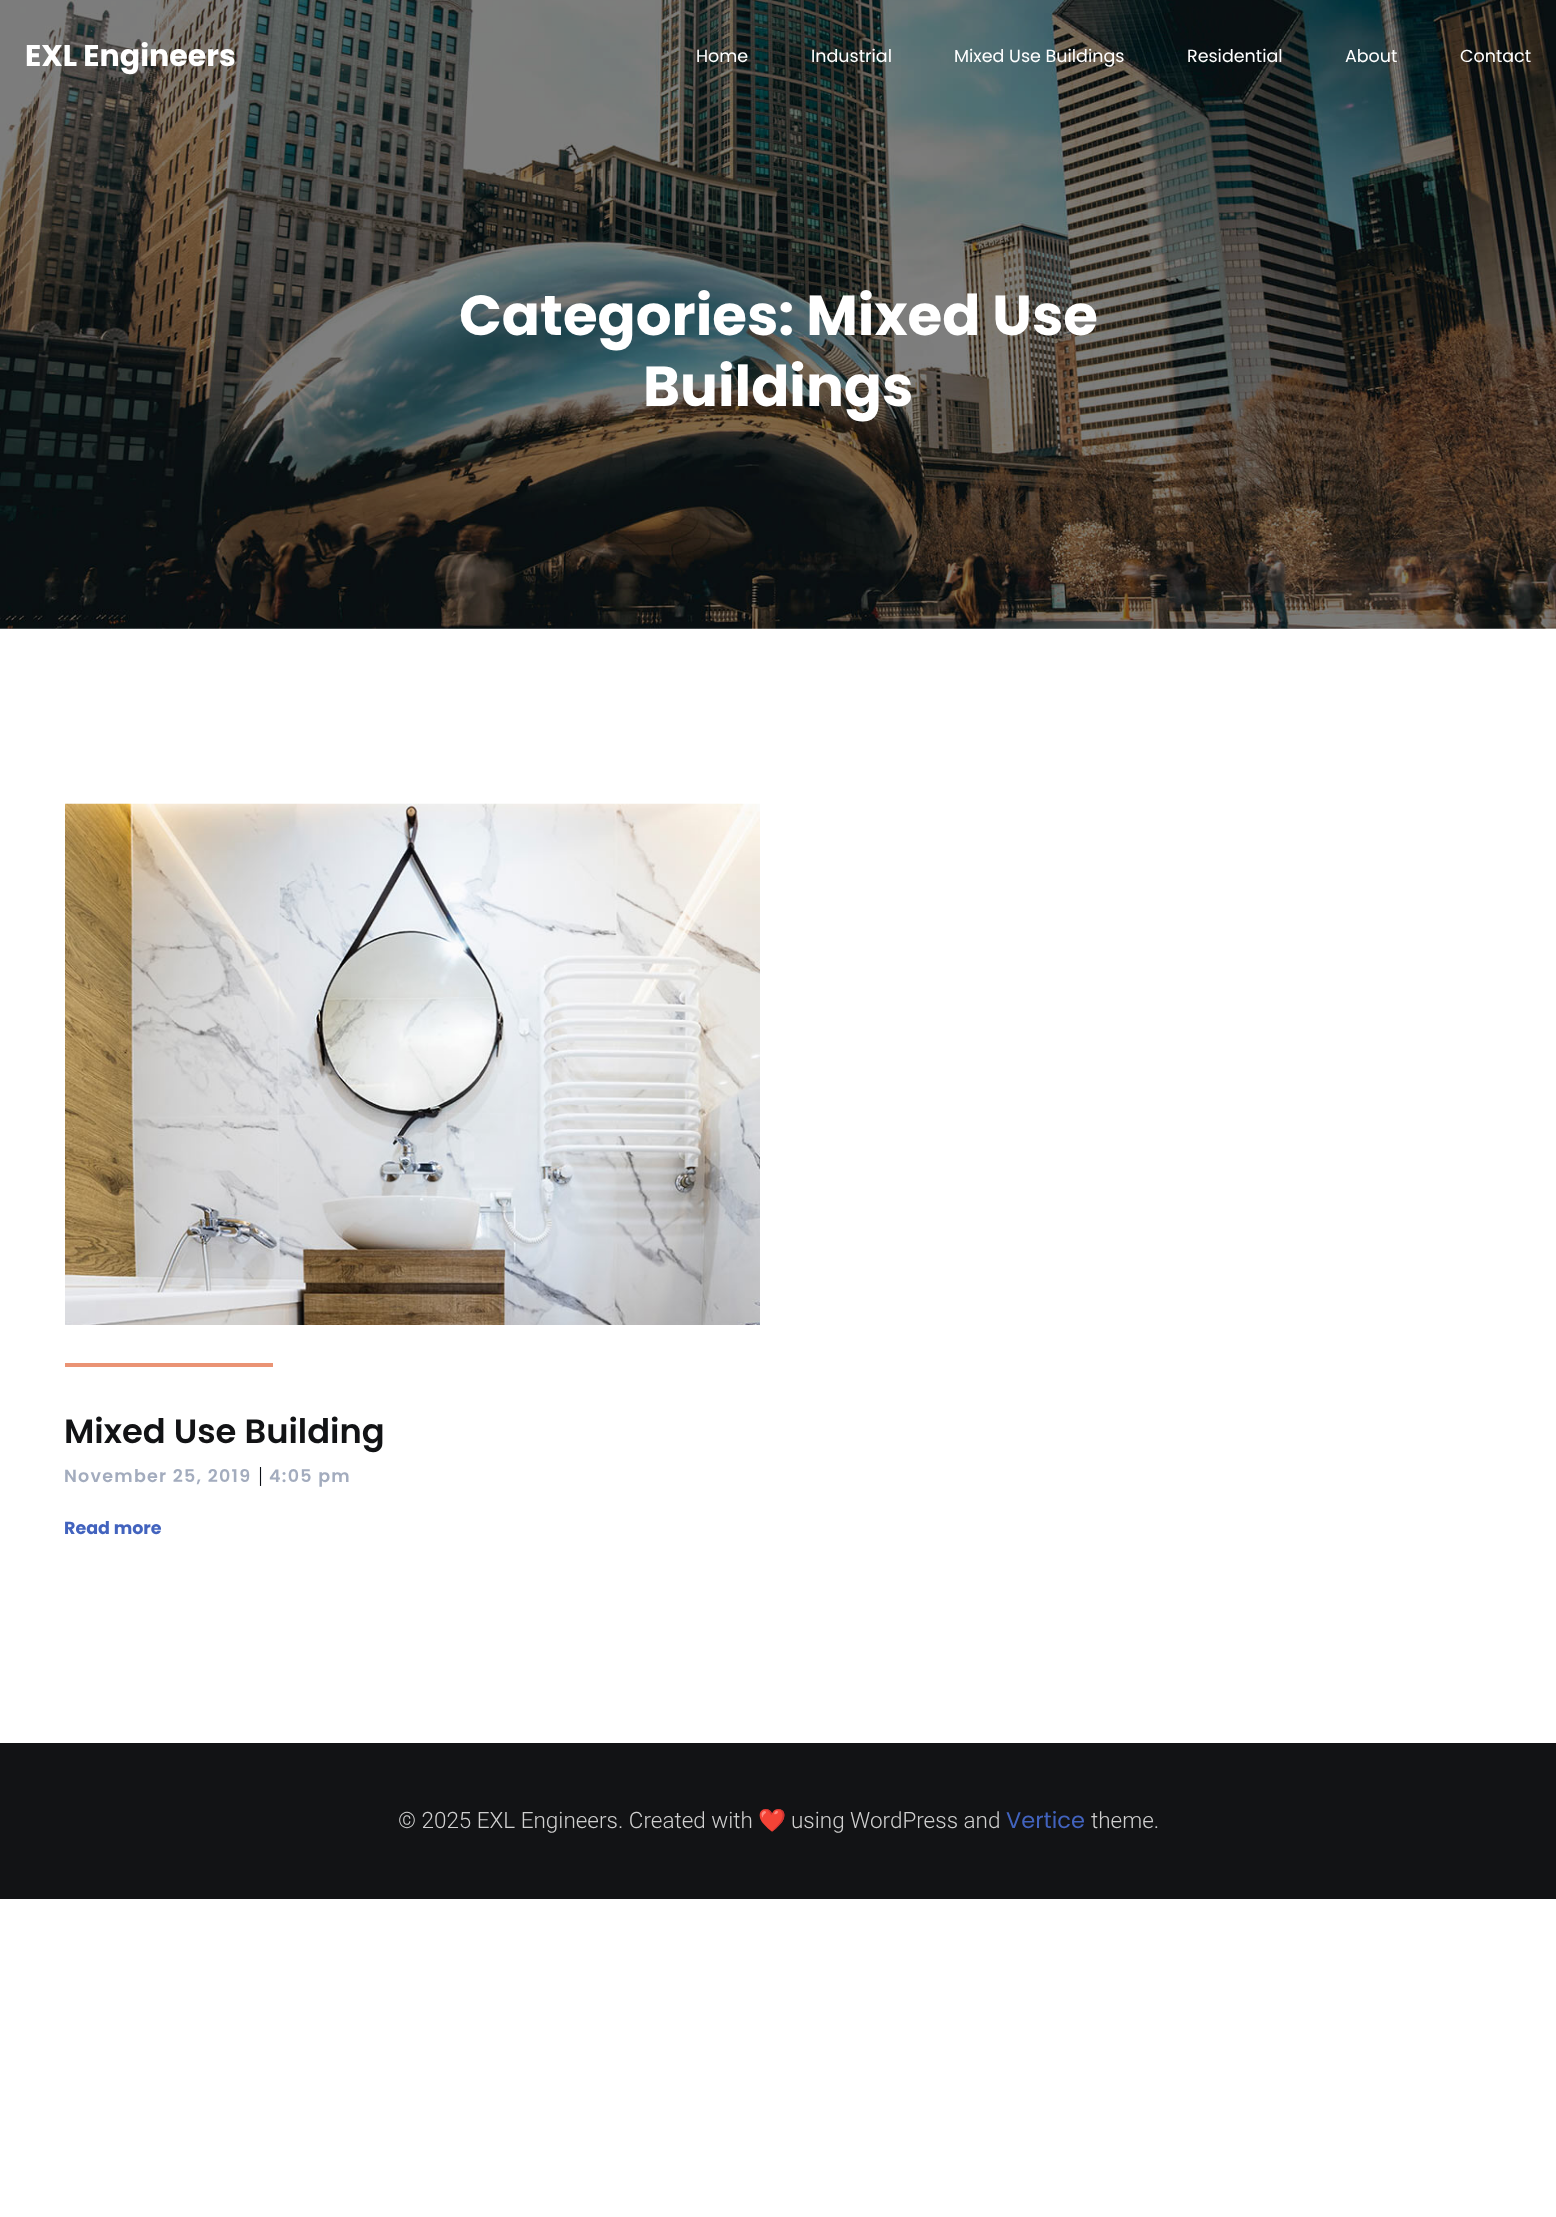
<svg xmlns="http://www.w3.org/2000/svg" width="1556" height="2217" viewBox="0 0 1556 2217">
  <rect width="100%" height="100%" fill="#fff"/>
  <image x="0" y="0" width="1556" height="629" href="img/1.png"/>
  <image x="65" y="803" width="695" height="522" href="img/2.png"/>
  <path d="M65 1363h208v4H65z" fill="#ea9374"/>
  <path d="M0 1743h1556v156H0z" fill="#121315"/>
  <text x="25" y="66" font-family="Poppins" font-size="30" font-weight="bold" fill="#fff">EXL Engineers</text>
  <g font-family="Poppins" font-size="17.5" fill="#fff">
    <text x="696" y="62">Home</text>
    <text x="811" y="62">Industrial</text>
    <text x="954" y="62">Mixed Use Buildings</text>
    <text x="1187" y="62">Residential</text>
    <text x="1345" y="62">About</text>
    <text x="1460" y="62">Contact</text>
  </g>
  <g font-family="Poppins" font-size="56.25" font-weight="bold" fill="#fff">
    <text x="459" y="335">Categories: Mixed Use</text>
    <text x="643" y="406">Buildings</text>
  </g>
  <text x="64" y="1443" font-family="Poppins" font-size="33.75" font-weight="600" fill="#121315">Mixed Use Building</text>
  <text x="64" y="1482" font-family="Poppins" font-size="17.5" font-weight="600" letter-spacing="1.25" fill="#a3acbe">November 25, 2019</text>
  <text x="258" y="1483" font-family="Roboto" font-size="22.5" font-weight="300" fill="#0a0e14">|</text>
  <text x="269" y="1482" font-family="Poppins" font-size="17.5" font-weight="600" letter-spacing="1.25" fill="#a3acbe">4:05 pm</text>
  <text x="64" y="1534" font-family="Poppins" font-size="17.5" font-weight="bold" fill="#4263be">Read more</text>
  <text x="398" y="1828" font-family="Roboto" font-size="22.5" font-weight="300" fill="#d0d0d0">© 2025 EXL Engineers. Created with</text>
  <text x="758" y="1828" font-family="Noto Color Emoji" font-size="22.5" fill="#d0d0d0">❤️</text>
  <text x="791" y="1828" font-family="Roboto" font-size="22.5" font-weight="300" fill="#d0d0d0">using WordPress and</text>
  <text x="1006" y="1828" font-family="Poppins" font-size="22.5" fill="#4263be">Vertice</text>
  <text x="1091" y="1828" font-family="Roboto" font-size="22.5" font-weight="300" fill="#d0d0d0">theme.</text>
</svg>
